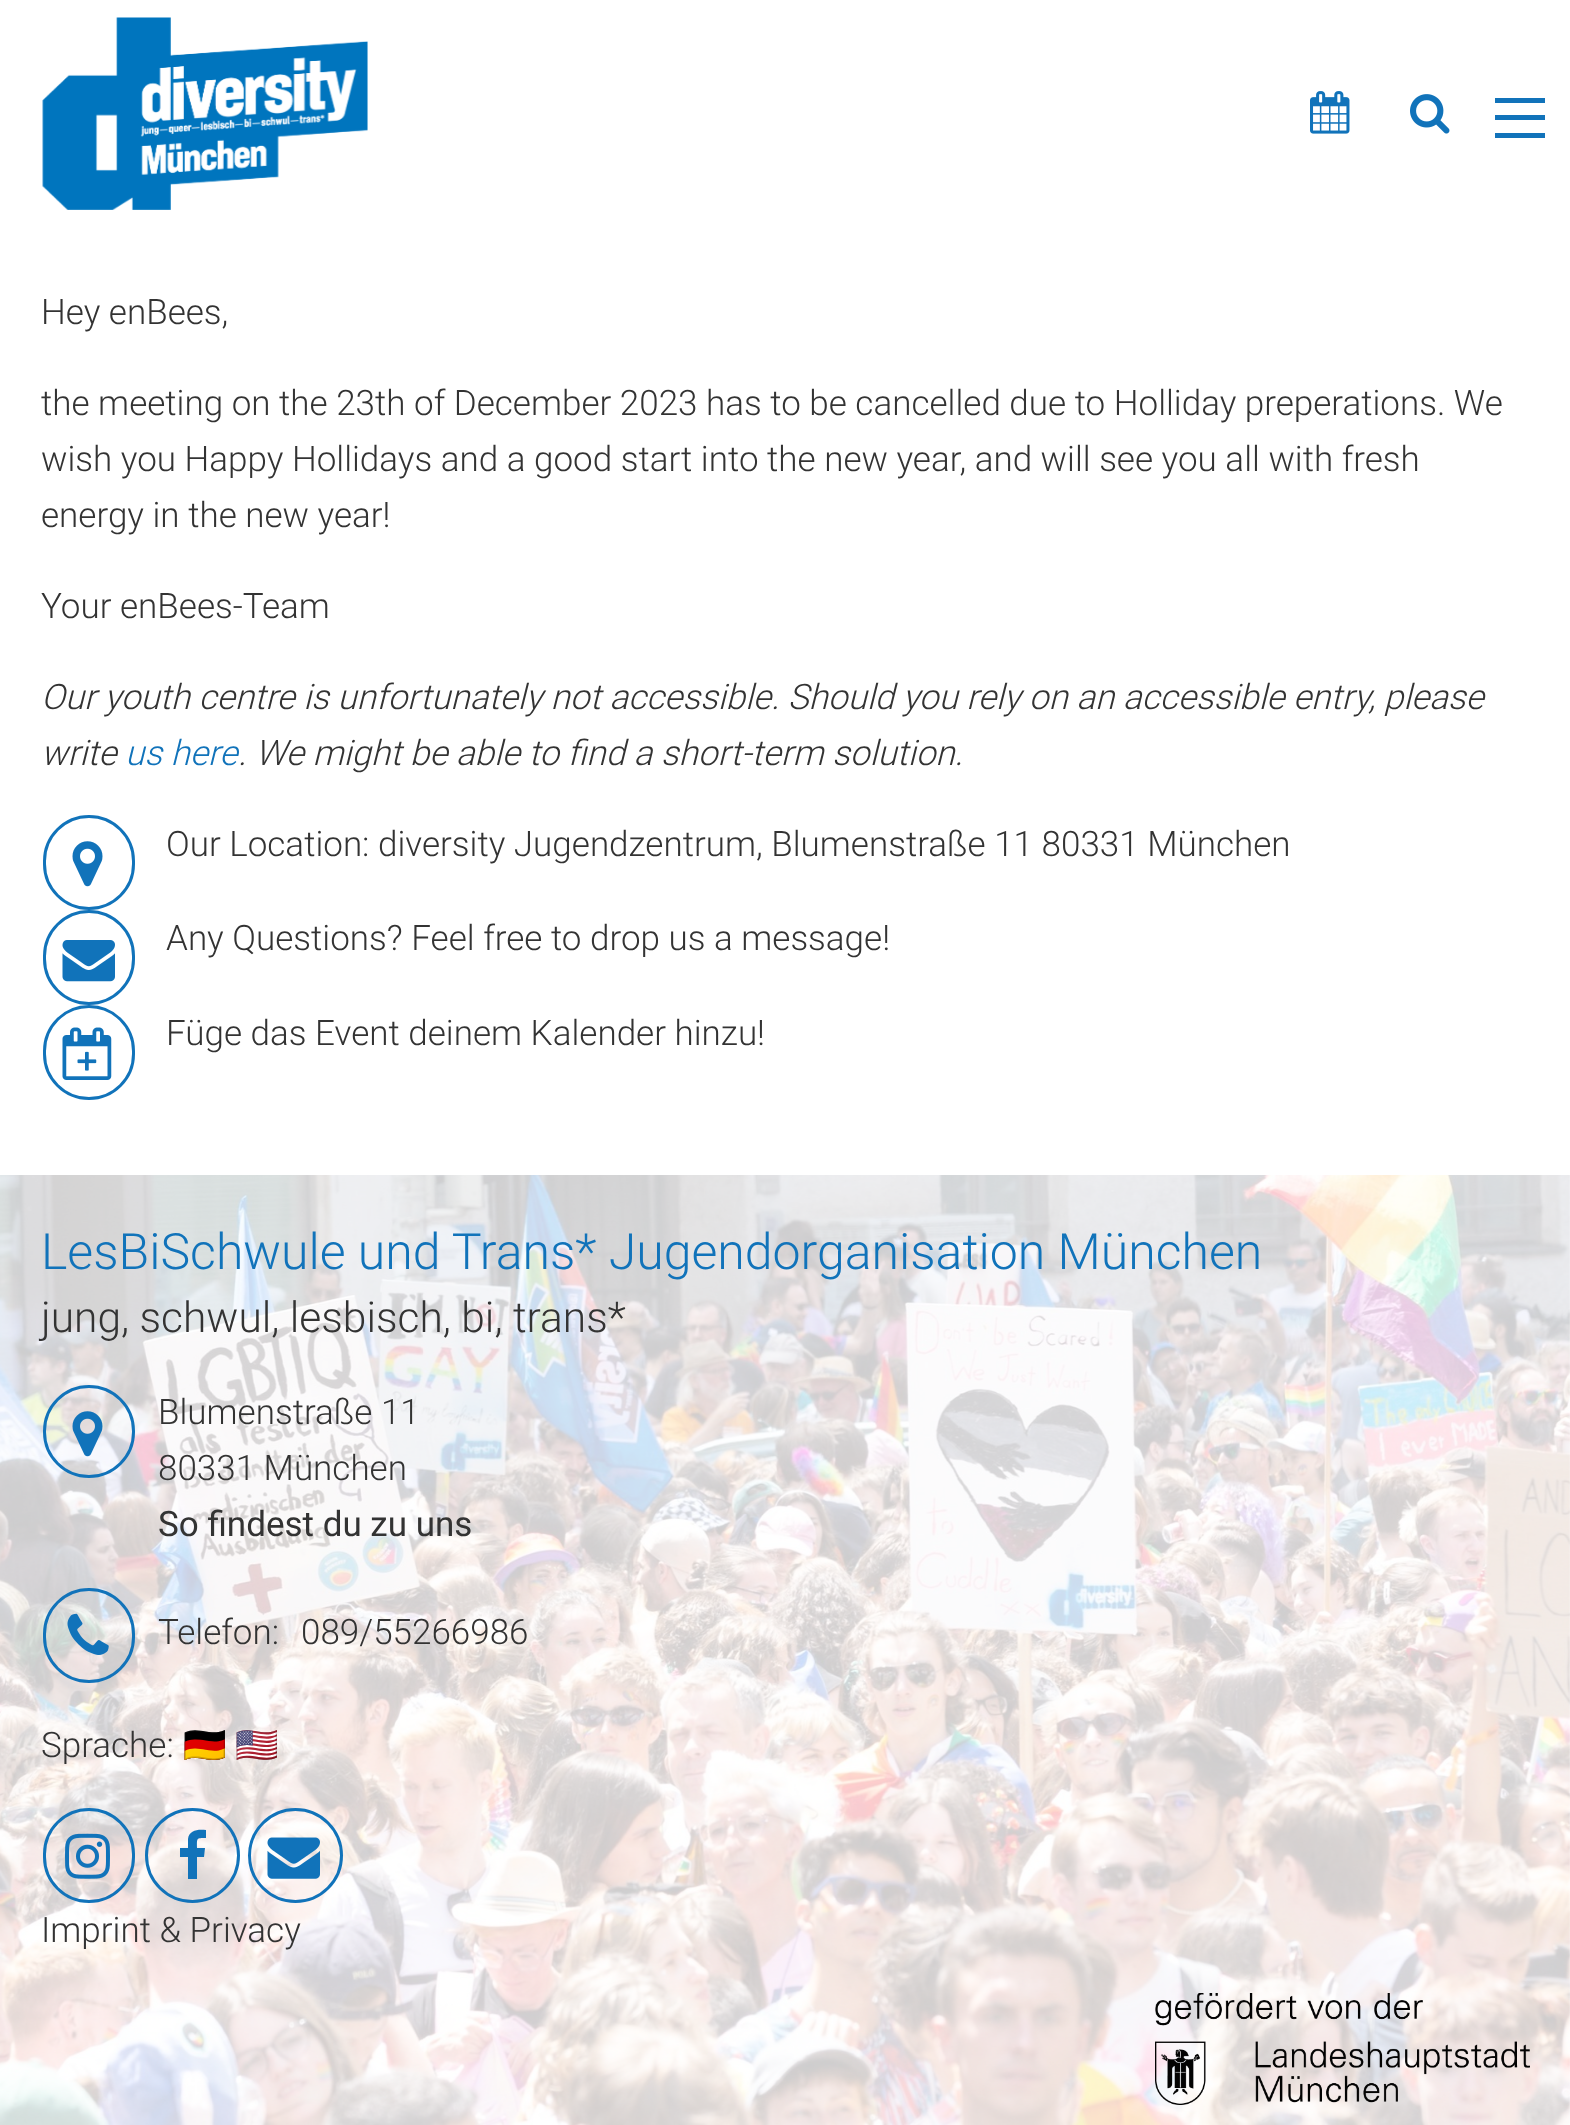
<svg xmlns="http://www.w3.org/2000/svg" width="1570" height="2125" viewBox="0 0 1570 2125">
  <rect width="100%" height="100%" fill="#fff"/>
  <image x="0" y="1175" width="1570" height="950" href="img/1.png"/>
  <image x="42" y="17" width="326" height="193" href="img/2.png"/>
  <image x="1310" y="91" width="40" height="43" href="img/3.png"/>
  <image x="1410" y="94" width="40" height="40" href="img/4.png"/>
  <path d="M1495 133h50v5H1495z" fill="#1173ba"/>
  <path d="M1495 115h50v5H1495z" fill="#1173ba"/>
  <path d="M1495 98h50v5H1495z" fill="#1173ba"/>
  <rect x="44.5" y="816.5" width="89" height="92" rx="44.5" fill="none" stroke="#1173ba" stroke-width="3"/>
  <image x="72" y="841" width="31" height="46" href="img/5.png"/>
  <rect x="44.5" y="911.5" width="89" height="92" rx="44.5" fill="none" stroke="#1173ba" stroke-width="3"/>
  <image x="62" y="940" width="53" height="42" href="img/6.png"/>
  <rect x="44.5" y="1006.5" width="89" height="92" rx="44.5" fill="none" stroke="#1173ba" stroke-width="3"/>
  <image x="62" y="1027" width="50" height="53" href="img/7.png"/>
  <rect x="44.5" y="1386.5" width="89" height="90" rx="44.5" fill="none" stroke="#1173ba" stroke-width="3"/>
  <image x="72" y="1411" width="31" height="46" href="img/8.png"/>
  <rect x="44.5" y="1589.5" width="89" height="92" rx="44.5" fill="none" stroke="#1173ba" stroke-width="3"/>
  <image x="67" y="1613" width="42" height="42" href="img/9.png"/>
  <rect x="44.5" y="1809.5" width="89" height="92" rx="44.5" fill="none" stroke="#1173ba" stroke-width="3"/>
  <image x="65" y="1833" width="45" height="46" href="img/10.png"/>
  <circle cx="192.5" cy="1855.5" r="46" fill="none" stroke="#1173ba" stroke-width="3"/>
  <path d="M206 1830V1838C196 1838 197 1838 197 1848H205L204 1857H197V1879H188V1857H180V1848H188V1839C189 1830 198 1829 206 1830Z" fill="#1173ba"/>
  <circle cx="295.5" cy="1855.5" r="46" fill="none" stroke="#1173ba" stroke-width="3"/>
  <image x="267" y="1837" width="53" height="42" href="img/11.png"/>
  <image x="1155" y="1993" width="375" height="112" href="img/12.png"/>
  <g font-family="Roboto" font-size="35" font-weight="300" fill="#333">
    <text x="41" y="324">Hey enBees,</text>
    <text x="41" y="415">the meeting on the 23th of December 2023 has to be cancelled due to Holliday preperations. We</text>
    <text x="41" y="471">wish you Happy Hollidays and a good start into the new year, and will see you all with fresh</text>
    <text x="41" y="527">energy in the new year!</text>
    <text x="41" y="618">Your enBees-Team</text>
  </g>
  <g font-family="Roboto" font-size="35" font-weight="300" font-style="italic" fill="#333">
    <text x="41" y="709">Our youth centre is unfortunately not accessible. Should you rely on an accessible entry, please</text>
    <text x="41" y="765">write</text>
  </g>
  <text x="125" y="765" font-family="Roboto" font-size="35" font-weight="300" font-style="italic" fill="#1173ba">us here</text>
  <text x="238" y="765" font-family="Roboto" font-size="35" font-weight="300" font-style="italic" fill="#333">. We might be able to find a short-term solution.</text>
  <g font-family="Roboto" font-size="35" font-weight="300" fill="#333">
    <text x="166" y="856">Our Location: diversity Jugendzentrum, Blumenstraße 11 80331 München</text>
    <text x="166" y="950">Any Questions? Feel free to drop us a message!</text>
    <text x="166" y="1045">Füge das Event deinem Kalender hinzu!</text>
  </g>
  <text x="41" y="1269" font-family="Roboto" font-size="50" font-weight="300" fill="#1173ba">LesBiSchwule und Trans* Jugendorganisation München</text>
  <text x="41" y="1332" font-family="Roboto" font-size="42.5" font-weight="300" fill="#333">jung, schwul, lesbisch, bi, trans*</text>
  <g font-family="Roboto" font-size="35" font-weight="300" fill="#333">
    <text x="158" y="1424">Blumenstraße 11</text>
    <text x="158" y="1480">80331 München</text>
  </g>
  <text x="158" y="1536" font-family="Roboto" font-size="35" fill="#333">So findest du zu uns</text>
  <g font-family="Roboto" font-size="35" font-weight="300" fill="#333">
    <text x="158" y="1644">Telefon:</text>
    <text x="301" y="1644">089/55266986</text>
    <text x="41" y="1757">Sprache:</text>
  </g>
  <g font-family="Noto Color Emoji" font-size="35" fill="#333">
    <text x="183" y="1757">🇩🇪</text>
    <text x="235" y="1757">🇺🇸</text>
  </g>
  <text x="41" y="1942" font-family="Roboto" font-size="35" font-weight="300" fill="#333">Imprint &amp; Privacy</text>
</svg>
